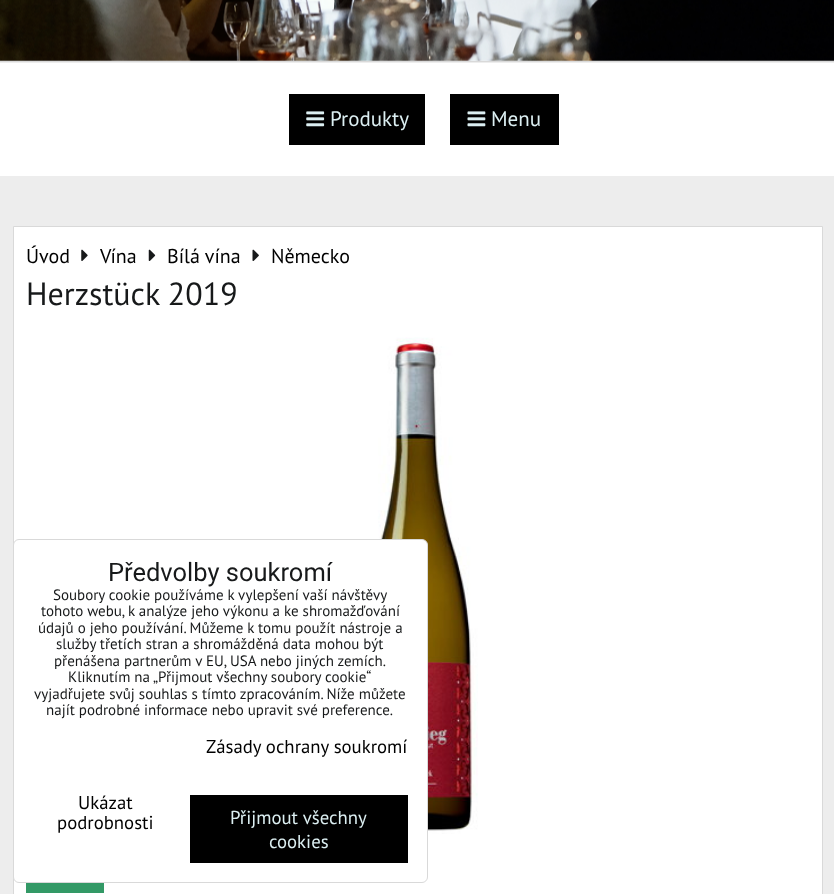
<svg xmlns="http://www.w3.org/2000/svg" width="834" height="894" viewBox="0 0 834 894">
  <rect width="100%" height="100%" fill="#ededed"/>
  <path d="M0 61h834v1H0z" fill="#d9d9d9"/>
  <image x="0" y="0" width="834" height="61" href="img/1.png"/>
  <path d="M0 63h834v113H0z" fill="#fff"/>
  <path d="M289 94h136v51H289z" fill="#000"/>
  <image x="306" y="111" width="19" height="16" href="img/2.png"/>
  <path d="M450 94h109v51H450z" fill="#000"/>
  <image x="467" y="111" width="19" height="16" href="img/3.png"/>
  <path d="M13.5 226.5h809v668H13.5z" fill="#fff" stroke="#d9d9d9"/>
  <image x="81" y="249" width="7" height="12" href="img/4.png"/>
  <image x="148" y="249" width="8" height="12" href="img/5.png"/>
  <image x="252" y="249" width="7" height="12" href="img/6.png"/>
  <image x="360" y="337" width="118" height="497" href="img/7.png"/>
  <path d="M26 883h78v10H26z" fill="#396"/>
  <rect x="13.5" y="539.5" width="414" height="343" rx="5.5" fill="#fff" stroke="#d9d9d9"/>
  <path d="M190 795h218v68H190z" fill="#000"/>
  <g font-family="PT Sans" font-size="21" fill="#dceff2">
    <text x="330" y="126">Produkty</text>
    <text x="491" y="126">Menu</text>
  </g>
  <g font-family="PT Sans" font-size="20" fill="#000">
    <text x="26" y="263">Úvod</text>
    <text x="100" y="263">Vína</text>
    <text x="167" y="263">Bílá vína</text>
    <text x="271" y="263">Německo</text>
  </g>
  <text x="26" y="305" font-family="PT Sans" font-size="32" fill="#17191a">Herzstück 2019</text>
  <text x="108" y="581" font-family="Roboto" font-size="25.5" fill="#17191a">Předvolby soukromí</text>
  <g font-family="PT Sans" font-size="15" fill="#17191a">
    <text x="53" y="600">Soubory cookie používáme k vylepšení vaší návštěvy</text>
    <text x="41" y="616">tohoto webu, k analýze jeho výkonu a ke shromažďování</text>
    <text x="38" y="633">údajů o jeho používání. Můžeme k tomu použít nástroje a</text>
    <text x="56" y="649">služby třetích stran a shromážděná data mohou být</text>
    <text x="54" y="666">přenášena partnerům v EU, USA nebo jiných zemích.</text>
    <text x="68" y="682">Kliknutím na „Přijmout všechny soubory cookie“</text>
    <text x="34" y="699">vyjadřujete svůj souhlas s tímto zpracováním. Níže můžete</text>
    <text x="46" y="715">najít podrobné informace nebo upravit své preference.</text>
  </g>
  <g font-family="PT Sans" font-size="18.75" fill="#000">
    <text x="206" y="753">Zásady ochrany soukromí</text>
    <text x="78" y="809">Ukázat</text>
    <text x="57" y="829">podrobnosti</text>
  </g>
  <g font-family="PT Sans" font-size="18.75" fill="#dceff2">
    <text x="230" y="824">Přijmout všechny</text>
    <text x="269" y="848">cookies</text>
  </g>
</svg>
